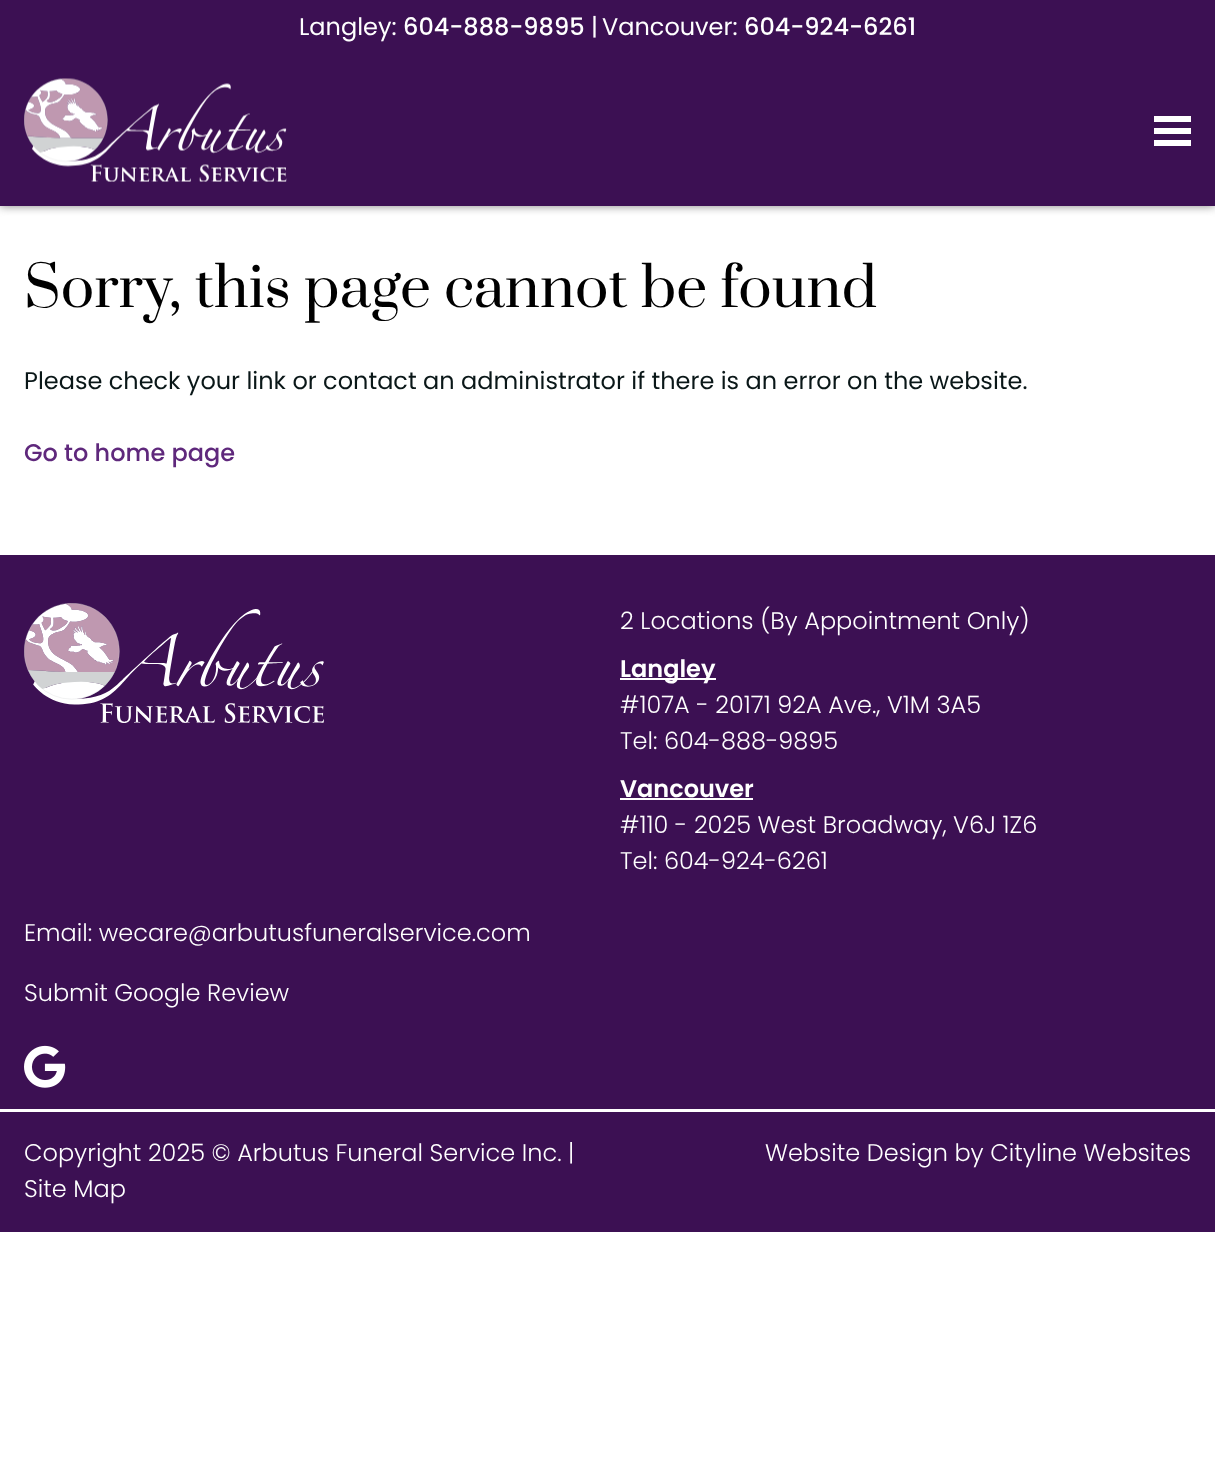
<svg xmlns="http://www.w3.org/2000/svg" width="1215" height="1470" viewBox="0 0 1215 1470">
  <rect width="100%" height="100%" fill="#fff"/>
  <path d="M0 0h1215v206H0z" fill="#828282" filter="blur(5px)"/>
  <path d="M0 0h1215v206H0z" fill="#3c1053"/>
  <image x="24" y="78" width="263" height="104" href="img/1.png"/>
  <path d="M1154 128h37v6H1154z" fill="#fff"/>
  <path d="M1154 116h37v6H1154z" fill="#fff"/>
  <path d="M1154 140h37v6H1154z" fill="#fff"/>
  <path d="M0 555h1215v677H0z" fill="#3c1053"/>
  <image x="24" y="603" width="300" height="120" href="img/2.png"/>
  <path d="M620 678h96v2H620z" fill="#fff"/>
  <path d="M620 798h133v2H620z" fill="#fff"/>
  <image x="24" y="1045" width="42" height="43" href="img/3.png"/>
  <path d="M0 1109h1215v3H0z" fill="#fff"/>
  <text x="299" y="35" font-family="Poppins" font-size="24" fill="#fff">Langley:</text>
  <text x="403" y="35" font-family="Poppins" font-size="24" font-weight="500" fill="#fff">604-888-9895</text>
  <g font-family="Poppins" font-size="24" fill="#fff">
    <text x="591" y="35">|</text>
    <text x="602" y="35">Vancouver:</text>
  </g>
  <text x="744" y="35" font-family="Poppins" font-size="24" font-weight="500" fill="#fff">604-924-6261</text>
  <text x="24" y="307" font-family="Prata" font-size="55.25" fill="#000">Sorry, this page cannot be found</text>
  <text x="24" y="389" font-family="Poppins" font-size="24" fill="#0a1718">Please check your link or contact an administrator if there is an error on the website.</text>
  <text x="24" y="461" font-family="Poppins" font-size="24" font-weight="500" fill="#5f287c">Go to home page</text>
  <text x="620" y="629" font-family="Poppins" font-size="24" font-weight="300" fill="#fff">2 Locations (By Appointment Only)</text>
  <text x="620" y="677" font-family="Poppins" font-size="24" font-weight="600" fill="#fff">Langley</text>
  <g font-family="Poppins" font-size="24" font-weight="300" fill="#fff">
    <text x="620" y="713">#107A - 20171 92A Ave., V1M 3A5</text>
    <text x="620" y="749">Tel: 604-888-9895</text>
  </g>
  <text x="620" y="797" font-family="Poppins" font-size="24" font-weight="600" fill="#fff">Vancouver</text>
  <g font-family="Poppins" font-size="24" font-weight="300" fill="#fff">
    <text x="620" y="833">#110 - 2025 West Broadway, V6J 1Z6</text>
    <text x="620" y="869">Tel: 604-924-6261</text>
    <text x="24" y="941">Email: wecare@arbutusfuneralservice.com</text>
    <text x="24" y="1001">Submit Google Review</text>
    <text x="24" y="1161">Copyright 2025 © Arbutus Funeral Service Inc. |</text>
    <text x="24" y="1197">Site Map</text>
    <text x="765" y="1161">Website Design by Cityline Websites</text>
  </g>
</svg>
